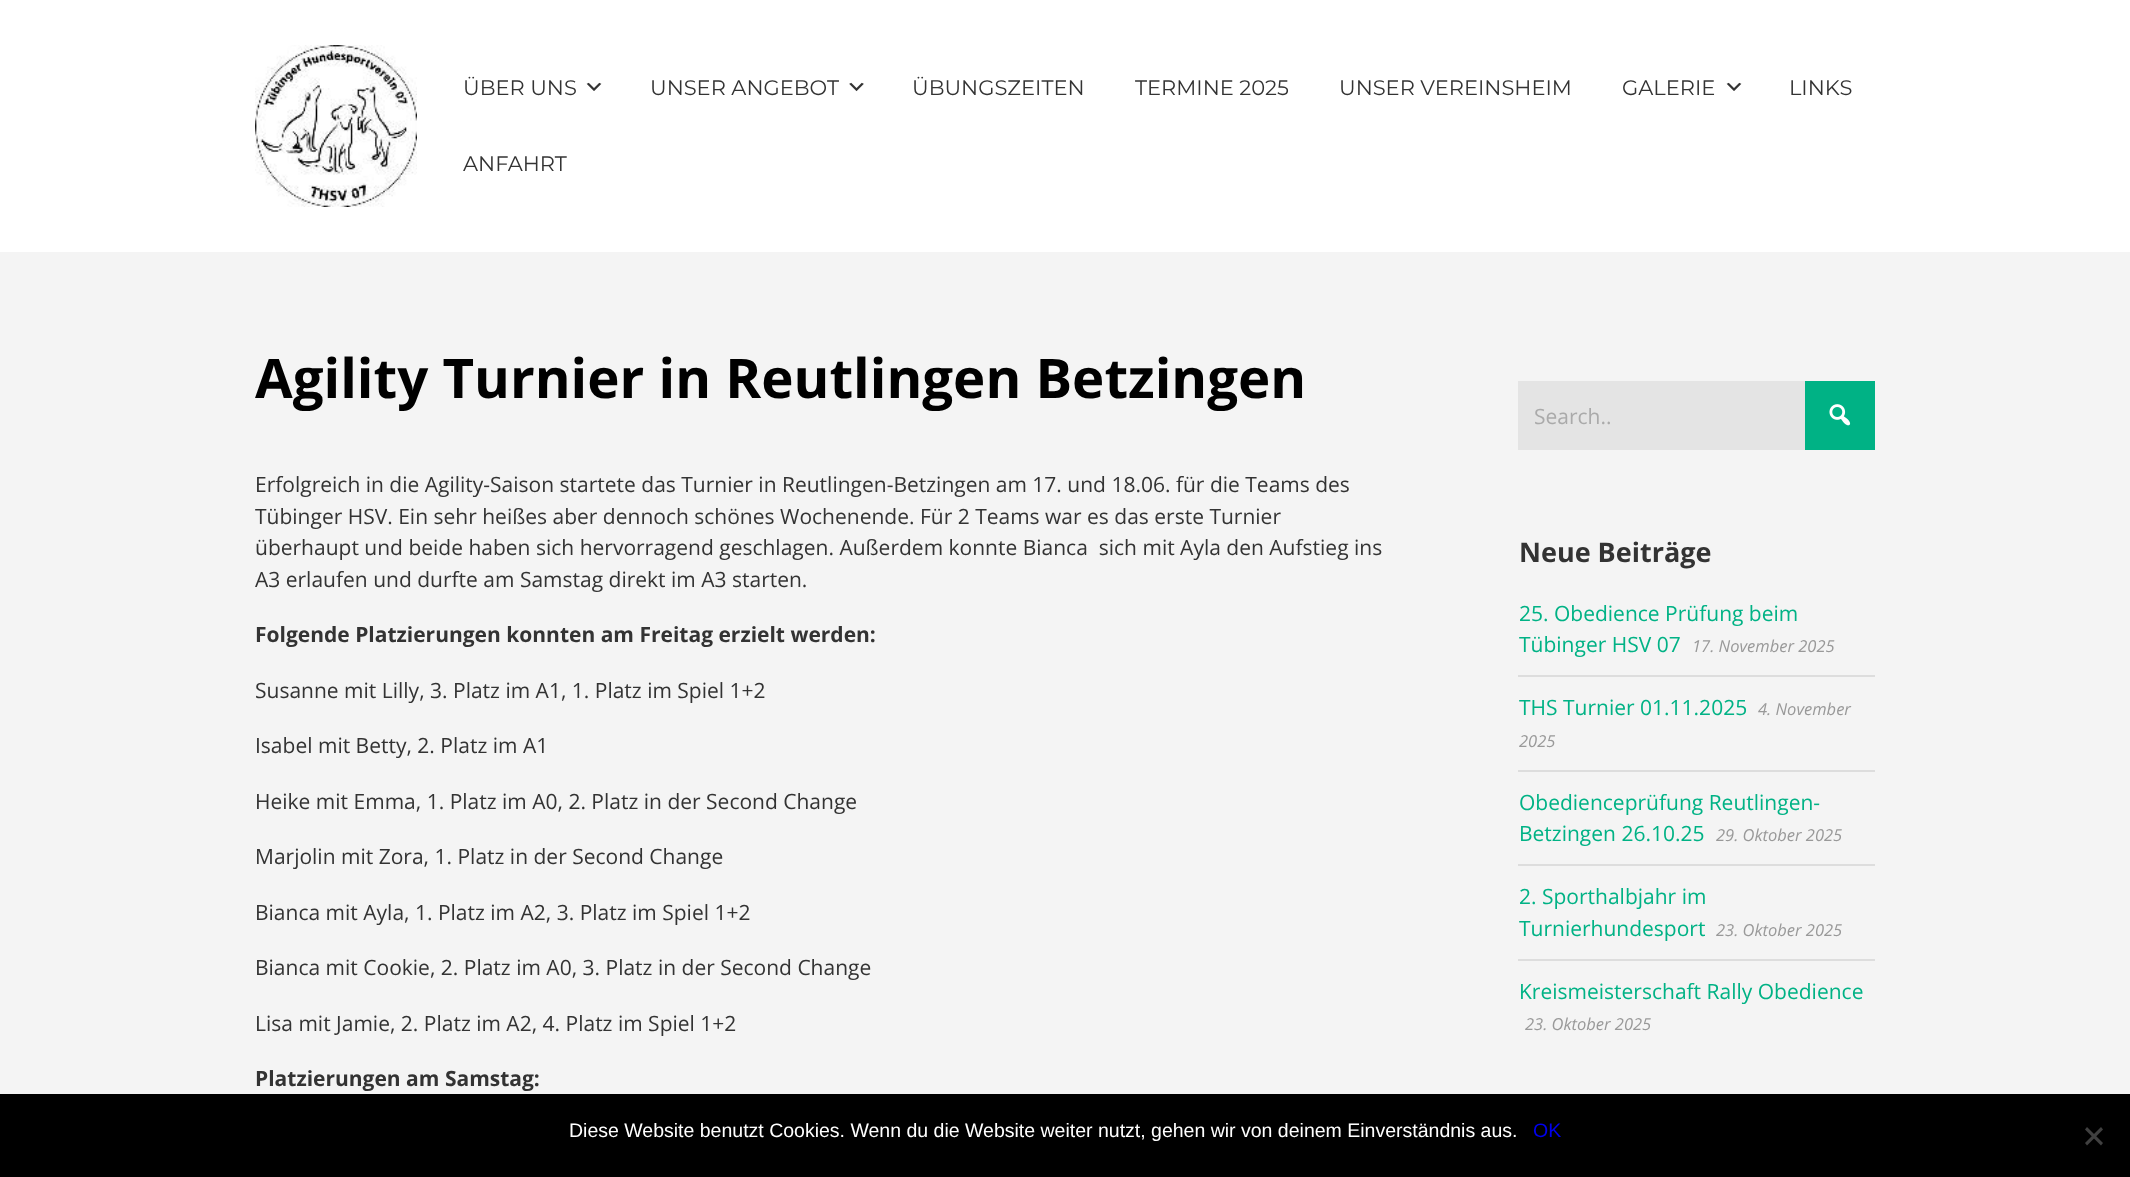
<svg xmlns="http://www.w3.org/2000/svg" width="2130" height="1177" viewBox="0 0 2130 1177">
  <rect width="100%" height="100%" fill="#fff"/>
  <image x="255" y="45" width="162" height="162" href="img/1.png"/>
  <image x="586" y="82" width="16" height="9" href="img/2.png"/>
  <image x="849" y="82" width="15" height="10" href="img/3.png"/>
  <image x="1726" y="82" width="16" height="9" href="img/2.png"/>
  <path d="M0 252h2130v842H0z" fill="#f4f4f4"/>
  <path d="M1518 381h287v69H1518z" fill="#e4e4e4"/>
  <path d="M1805 381h70v69H1805z" fill="#00b285"/>
  <image x="1829" y="404" width="22" height="22" href="img/4.png"/>
  <path d="M1518 675h357v2H1518z" fill="#ddd"/>
  <path d="M1518 770h357v2H1518z" fill="#ddd"/>
  <path d="M1518 864h357v2H1518z" fill="#ddd"/>
  <path d="M1518 959h357v2H1518z" fill="#ddd"/>
  <path d="M0 1094h2130v83H0z" fill="#000"/>
  <path d="M2101 1127L2103 1129.5L2087 1145.5L2085 1143Z" fill="#404040"/>
  <path d="M2085 1129.5L2087 1127L2103 1143L2101 1145.5Z" fill="#404040"/>
  <g font-family="Montserrat" font-size="21" fill="#333">
    <text x="463" y="95">ÜBER UNS</text>
    <text x="650" y="95">UNSER ANGEBOT</text>
    <text x="912" y="95">ÜBUNGSZEITEN</text>
    <text x="1135" y="95">TERMINE 2025</text>
    <text x="1339" y="95">UNSER VEREINSHEIM</text>
    <text x="1622" y="95">GALERIE</text>
    <text x="1789" y="95">LINKS</text>
    <text x="463" y="171">ANFAHRT</text>
  </g>
  <text x="255" y="398" font-family="Open Sans" font-size="54.6" font-weight="bold" fill="#000">Agility Turnier in Reutlingen Betzingen</text>
  <g font-family="Open Sans" font-size="21" fill="#333">
    <text x="255" y="492">Erfolgreich in die Agility-Saison startete das Turnier in Reutlingen-Betzingen am 17. und 18.06. für die Teams des</text>
    <text x="255" y="524">Tübinger HSV. Ein sehr heißes aber dennoch schönes Wochenende. Für 2 Teams war es das erste Turnier</text>
    <text x="255" y="555" xml:space="preserve">überhaupt und beide haben sich hervorragend geschlagen. Außerdem konnte Bianca  sich mit Ayla den Aufstieg ins</text>
    <text x="255" y="587">A3 erlaufen und durfte am Samstag direkt im A3 starten.</text>
  </g>
  <text x="255" y="642" font-family="Open Sans" font-size="21" font-weight="bold" fill="#333">Folgende Platzierungen konnten am Freitag erzielt werden:</text>
  <g font-family="Open Sans" font-size="21" fill="#333">
    <text x="255" y="698">Susanne mit Lilly, 3. Platz im A1, 1. Platz im Spiel 1+2</text>
    <text x="255" y="753">Isabel mit Betty, 2. Platz im A1</text>
    <text x="255" y="809">Heike mit Emma, 1. Platz im A0, 2. Platz in der Second Change</text>
    <text x="255" y="864">Marjolin mit Zora, 1. Platz in der Second Change</text>
    <text x="255" y="920">Bianca mit Ayla, 1. Platz im A2, 3. Platz im Spiel 1+2</text>
    <text x="255" y="975">Bianca mit Cookie, 2. Platz im A0, 3. Platz in der Second Change</text>
    <text x="255" y="1031">Lisa mit Jamie, 2. Platz im A2, 4. Platz im Spiel 1+2</text>
  </g>
  <text x="255" y="1086" font-family="Open Sans" font-size="21" font-weight="bold" fill="#333">Platzierungen am Samstag:</text>
  <text x="1534" y="424" font-family="Open Sans" font-size="21" fill="#aaa">Search..</text>
  <text x="1519" y="562" font-family="Open Sans" font-size="27" font-weight="bold" fill="#333">Neue Beiträge</text>
  <g font-family="Open Sans" font-size="21" fill="#00b285">
    <text x="1519" y="621">25. Obedience Prüfung beim</text>
    <text x="1519" y="652">Tübinger HSV 07</text>
  </g>
  <text x="1692" y="652" font-family="Open Sans" font-size="16.5" font-style="italic" fill="#999">17. November 2025</text>
  <text x="1519" y="715" font-family="Open Sans" font-size="21" fill="#00b285">THS Turnier 01.11.2025</text>
  <g font-family="Open Sans" font-size="16.5" font-style="italic" fill="#999">
    <text x="1758" y="715">4. November</text>
    <text x="1519" y="747">2025</text>
  </g>
  <g font-family="Open Sans" font-size="21" fill="#00b285">
    <text x="1519" y="810">Obedienceprüfung Reutlingen-</text>
    <text x="1519" y="841">Betzingen 26.10.25</text>
  </g>
  <text x="1716" y="841" font-family="Open Sans" font-size="16.5" font-style="italic" fill="#999">29. Oktober 2025</text>
  <g font-family="Open Sans" font-size="21" fill="#00b285">
    <text x="1519" y="904">2. Sporthalbjahr im</text>
    <text x="1519" y="936">Turnierhundesport</text>
  </g>
  <text x="1716" y="936" font-family="Open Sans" font-size="16.5" font-style="italic" fill="#999">23. Oktober 2025</text>
  <text x="1519" y="999" font-family="Open Sans" font-size="21" fill="#00b285">Kreismeisterschaft Rally Obedience</text>
  <text x="1525" y="1030" font-family="Open Sans" font-size="16.5" font-style="italic" fill="#999">23. Oktober 2025</text>
  <text x="569" y="1137" font-family="Liberation Sans" font-size="19.5" fill="#fff">Diese Website benutzt Cookies. Wenn du die Website weiter nutzt, gehen wir von deinem Einverständnis aus.</text>
  <text x="1533" y="1137" font-family="Liberation Sans" font-size="19.5" fill="#00e">OK</text>
</svg>
